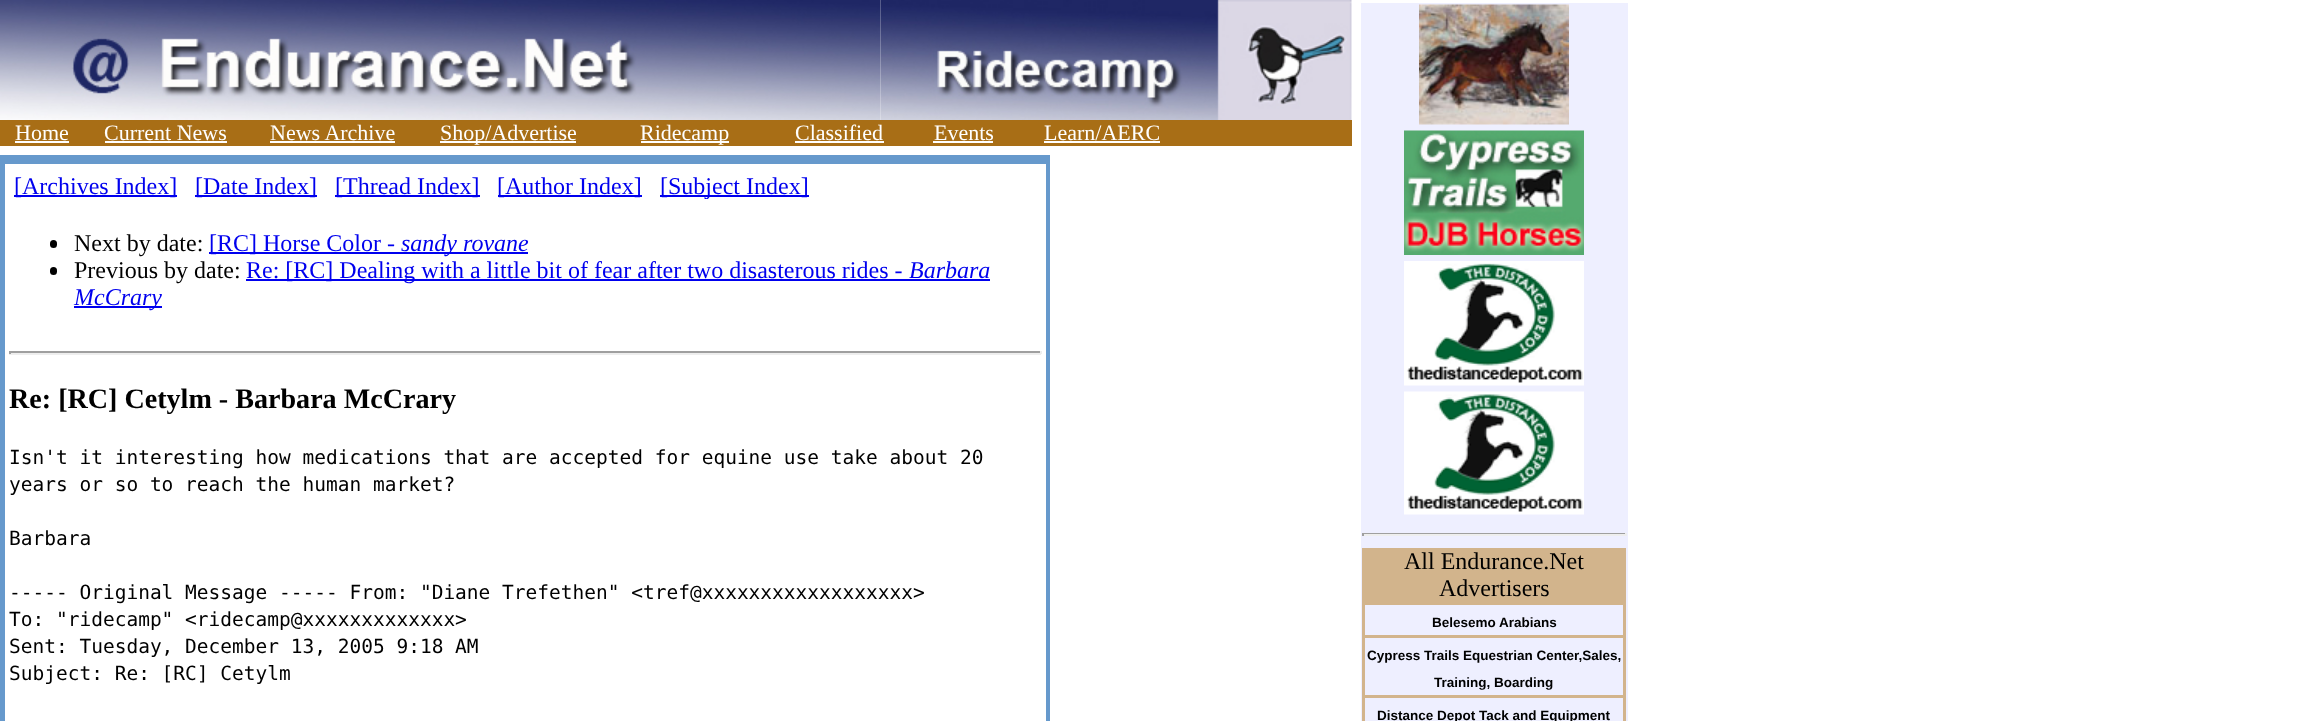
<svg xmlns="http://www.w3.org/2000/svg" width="2321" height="721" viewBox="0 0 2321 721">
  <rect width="100%" height="100%" fill="#fff"/>
  <image x="0" y="0" width="881" height="120" href="img/1.png"/>
  <image x="880" y="0" width="472" height="120" href="img/2.png"/>
  <path d="M0 120h1352v26H0z" fill="#a86e16"/>
  <path d="M15 141h54v2H15z" fill="#fff"/>
  <path d="M105 141h122v2H105z" fill="#fff"/>
  <path d="M270 141h125v2H270z" fill="#fff"/>
  <path d="M440 141h136v2H440z" fill="#fff"/>
  <path d="M641 141h88v2H641z" fill="#fff"/>
  <path d="M795 141h89v2H795z" fill="#fff"/>
  <path d="M933 141h60v2H933z" fill="#fff"/>
  <path d="M1044 141h116v2H1044z" fill="#fff"/>
  <path d="M0 155h1050v566H0z" fill="#69c"/>
  <path d="M5 164h1041v557H5z" fill="#fff"/>
  <path d="M14 195h163v2H14z" fill="#00e"/>
  <path d="M195 195h122v2H195z" fill="#00e"/>
  <path d="M335 195h145v2H335z" fill="#00e"/>
  <path d="M498 195h144v2H498z" fill="#00e"/>
  <path d="M660 195h149v2H660z" fill="#00e"/>
  <rect x="50" y="240" width="7" height="8" rx="3.5" fill="#000"/>
  <path d="M209 252h319v2H209z" fill="#00e"/>
  <rect x="50" y="267" width="7" height="8" rx="3.5" fill="#000"/>
  <path d="M246 279h744v2H246z" fill="#00e"/>
  <path d="M74 306h88v2H74z" fill="#00e"/>
  <path d="M9 351h1032v2H9z" fill="#9f9f9f"/>
  <path d="M1040 351h2v3H1040z" fill="#eee"/>
  <path d="M9 353h1032v2H9z" fill="#eee"/>
  <path d="M9 351h2v3H9z" fill="#9f9f9f"/>
  <path d="M1361 3h267v718H1361z" fill="#eeefff"/>
  <image x="1419" y="4" width="150" height="121" href="img/3.png"/>
  <image x="1404" y="130" width="180" height="125" href="img/4.png"/>
  <image x="1404" y="261" width="180" height="125" href="img/5.png"/>
  <image x="1404" y="391" width="180" height="124" href="img/6.png"/>
  <path d="M1362 533h264v1H1362z" fill="#9f9f9f"/>
  <path d="M1625 533h2v3H1625z" fill="#eee"/>
  <path d="M1362 534h264v2H1362z" fill="#eee"/>
  <path d="M1362 533h2v3H1362z" fill="#9f9f9f"/>
  <path d="M1362 548h264v173H1362z" fill="#d2b48c"/>
  <path d="M1365 605h258v30H1365z" fill="#eeefff"/>
  <path d="M1365 638h258v57H1365z" fill="#eeefff"/>
  <path d="M1365 698h258v23H1365z" fill="#eeefff"/>
  <g font-family="Liberation Serif" font-size="22" fill="#fff">
    <text x="15" y="140">Home</text>
    <text x="104" y="140">Current News</text>
    <text x="270" y="140">News Archive</text>
    <text x="440" y="140">Shop/Advertise</text>
    <text x="640" y="140">Ridecamp</text>
    <text x="795" y="140">Classified</text>
    <text x="934" y="140">Events</text>
    <text x="1044" y="140">Learn/AERC</text>
  </g>
  <g font-family="Liberation Serif" font-size="24" fill="#00e">
    <text x="14" y="194">[Archives Index]</text>
    <text x="195" y="194">[Date Index]</text>
    <text x="335" y="194">[Thread Index]</text>
    <text x="497" y="194">[Author Index]</text>
    <text x="660" y="194">[Subject Index]</text>
  </g>
  <text x="74" y="251" font-family="Liberation Serif" font-size="24" fill="#000">Next by date:</text>
  <text x="209" y="251" font-family="Liberation Serif" font-size="24" fill="#00e">[RC] Horse Color -</text>
  <text x="401" y="251" font-family="Liberation Serif" font-size="24" font-style="italic" fill="#00e">sandy rovane</text>
  <text x="74" y="278" font-family="Liberation Serif" font-size="24" fill="#000">Previous by date:</text>
  <text x="246" y="278" font-family="Liberation Serif" font-size="24" fill="#00e">Re: [RC] Dealing with a little bit of fear after two disasterous rides -</text>
  <g font-family="Liberation Serif" font-size="24" font-style="italic" fill="#00e">
    <text x="909" y="278">Barbara</text>
    <text x="74" y="305">McCrary</text>
  </g>
  <text x="9" y="408" font-family="Liberation Serif" font-size="28.1" font-weight="bold" fill="#000">Re: [RC] Cetylm - Barbara McCrary</text>
  <g font-family="DejaVu Sans Mono" font-size="19.5" fill="#000">
    <text x="9" y="464">Isn't it interesting how medications that are accepted for equine use take about 20</text>
    <text x="9" y="491">years or so to reach the human market?</text>
    <text x="9" y="545">Barbara</text>
    <text x="9" y="599">----- Original Message ----- From: "Diane Trefethen" &lt;tref@xxxxxxxxxxxxxxxxxx&gt;</text>
    <text x="9" y="626">To: "ridecamp" &lt;ridecamp@xxxxxxxxxxxxx&gt;</text>
    <text x="9" y="653">Sent: Tuesday, December 13, 2005 9:18 AM</text>
    <text x="9" y="680">Subject: Re: [RC] Cetylm</text>
  </g>
  <g font-family="Liberation Serif" font-size="24" fill="#000">
    <text x="1404" y="569">All Endurance.Net</text>
    <text x="1439" y="596">Advertisers</text>
  </g>
  <g font-family="Liberation Sans" font-size="13.5" font-weight="bold" fill="#000">
    <text x="1432" y="627">Belesemo Arabians</text>
    <text x="1367" y="660">Cypress Trails Equestrian Center,Sales,</text>
    <text x="1434" y="687">Training, Boarding</text>
    <text x="1377" y="720">Distance Depot Tack and Equipment</text>
  </g>
</svg>
